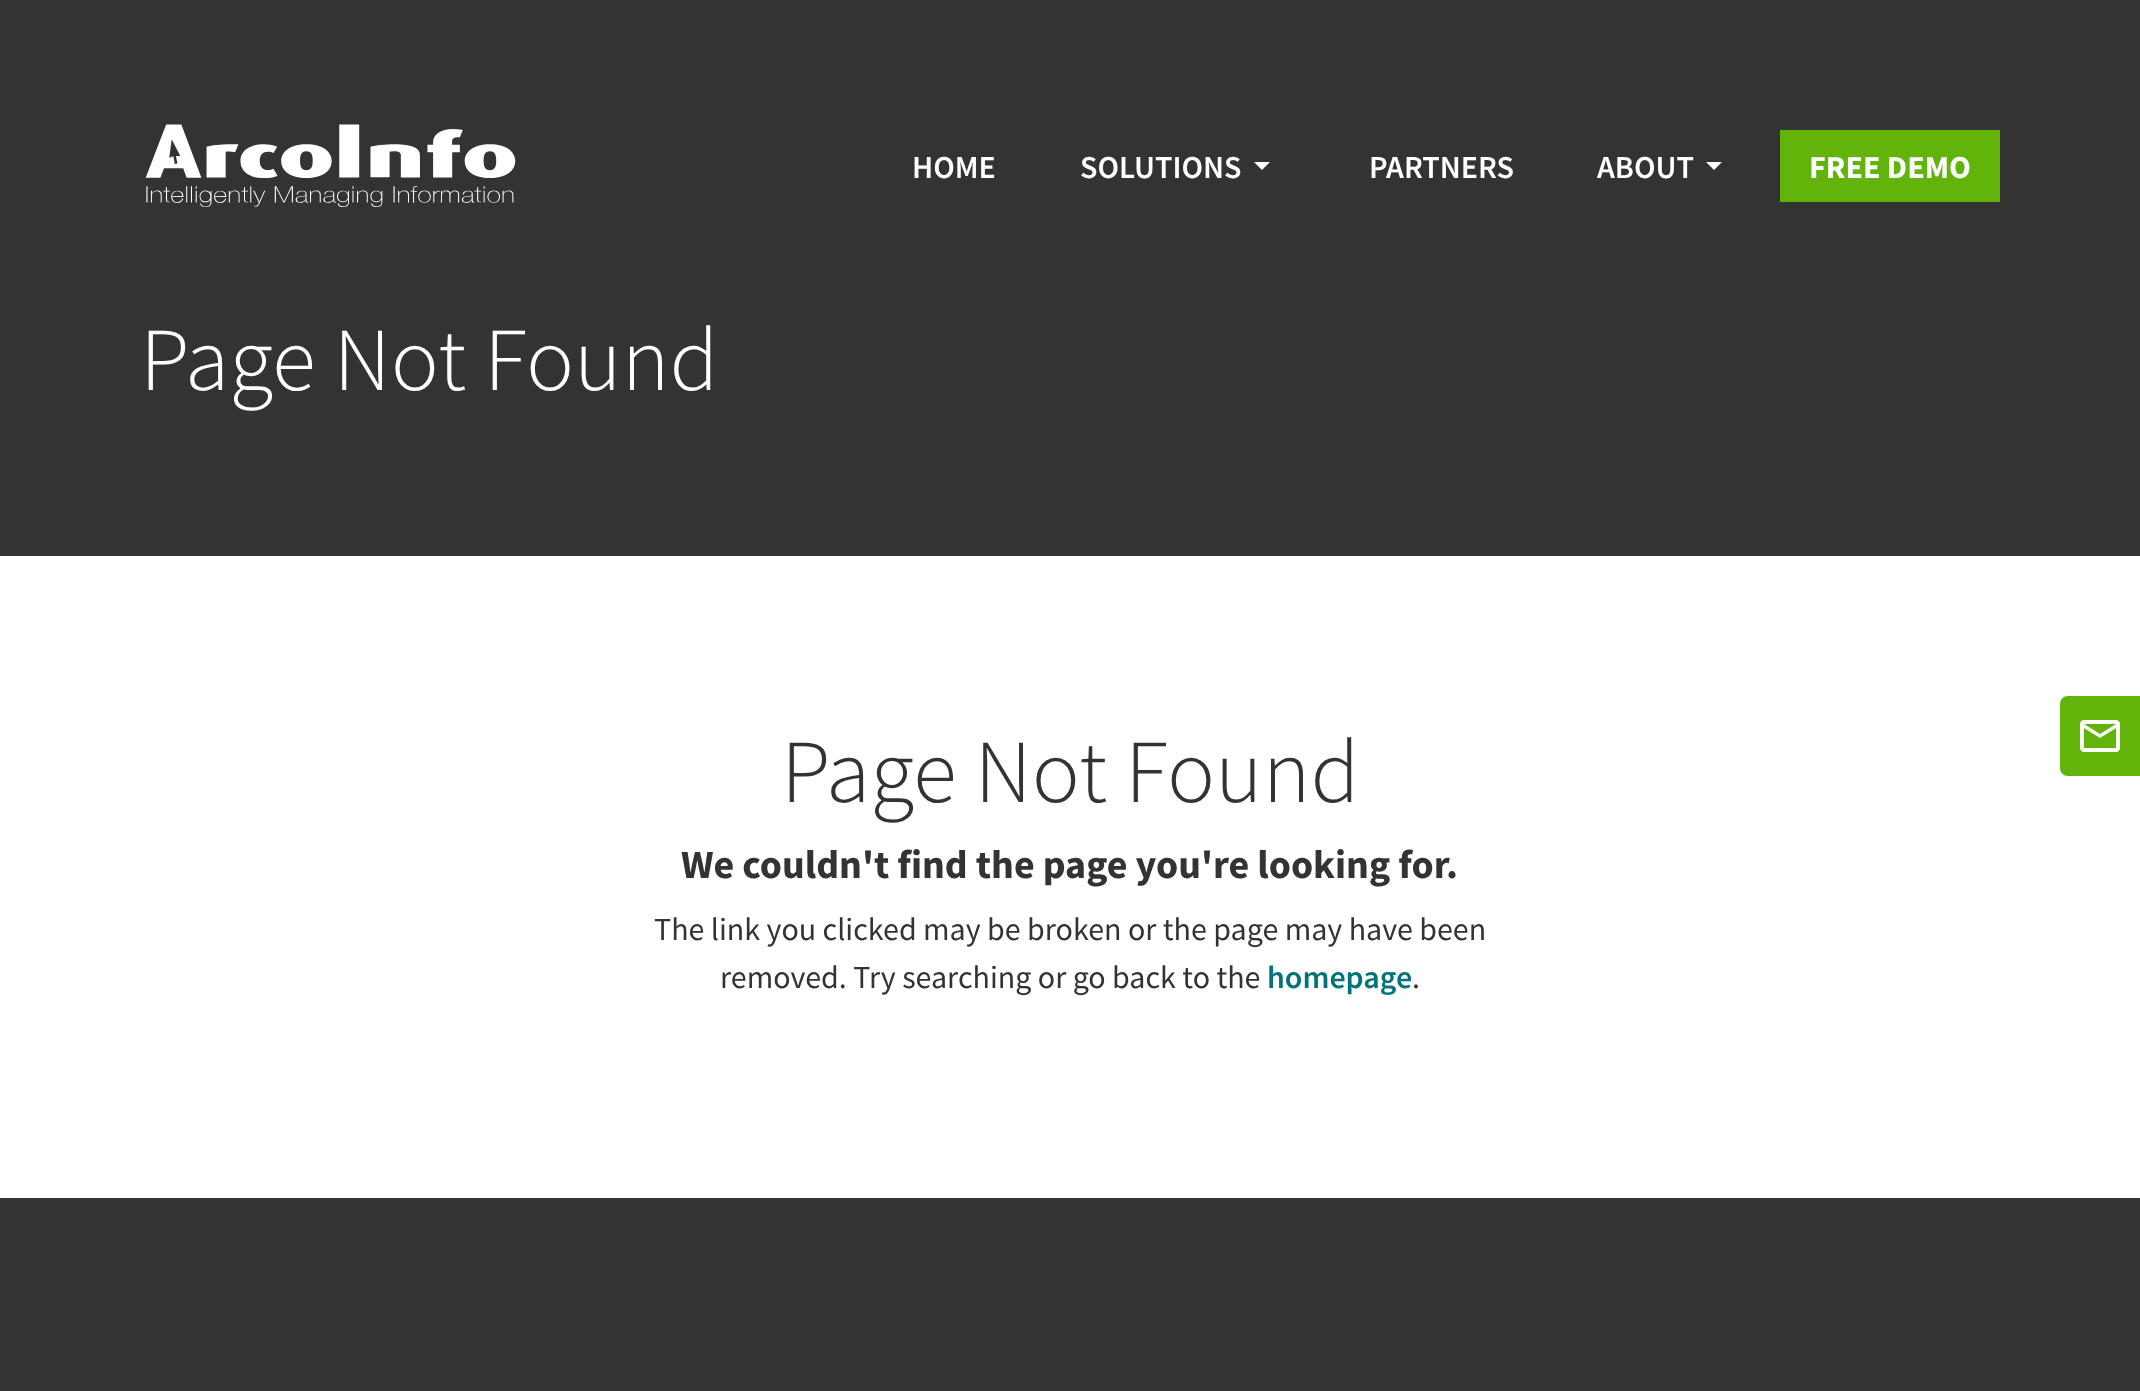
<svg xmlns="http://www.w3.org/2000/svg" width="2140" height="1391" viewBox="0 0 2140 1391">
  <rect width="100%" height="100%" fill="#fff"/>
  <path d="M0 0h2140v556H0z" fill="#333"/>
  <image x="145" y="124" width="371" height="83" href="img/1.png"/>
  <path d="M1254 162H1270L1262 170Z" fill="#fff"/>
  <path d="M1706 162H1722L1714 170Z" fill="#fff"/>
  <path d="M1780 130h220v72H1780z" fill="#63b40a"/>
  <path d="M2068 696H2140V776H2068C2063.5 776 2060 772.5 2060 768V704C2060 699.5 2063.5 696 2068 696Z" fill="#63b40a"/>
  <image x="2080" y="720" width="40" height="32" href="img/2.png"/>
  <path d="M0 1198h2140v193H0z" fill="#333"/>
  <g font-family="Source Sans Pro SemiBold" font-size="32" font-weight="600" fill="#fff">
    <text x="912" y="178">HOME</text>
    <text x="1080" y="178">SOLUTIONS</text>
    <text x="1369" y="178">PARTNERS</text>
    <text x="1597" y="178">ABOUT</text>
  </g>
  <text x="1809" y="178" font-family="Source Sans Pro" font-size="32" font-weight="bold" fill="#fff">FREE DEMO</text>
  <text x="140" y="390" font-family="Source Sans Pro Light" font-size="90" font-weight="300" fill="#fff">Page Not Found</text>
  <text x="781" y="802" font-family="Source Sans Pro Light" font-size="90" font-weight="300" fill="#333">Page Not Found</text>
  <text x="681" y="878" font-family="Source Sans Pro" font-size="40" font-weight="bold" fill="#333">We couldn't find the page you're looking for.</text>
  <g font-family="Source Sans Pro" font-size="32" fill="#333">
    <text x="654" y="940">The link you clicked may be broken or the page may have been</text>
    <text x="720" y="988">removed. Try searching or go back to the</text>
  </g>
  <text x="1267" y="988" font-family="Source Sans Pro SemiBold" font-size="32" font-weight="600" fill="#02737b">homepage</text>
  <text x="1412" y="988" font-family="Source Sans Pro" font-size="32" fill="#333">.</text>
</svg>
